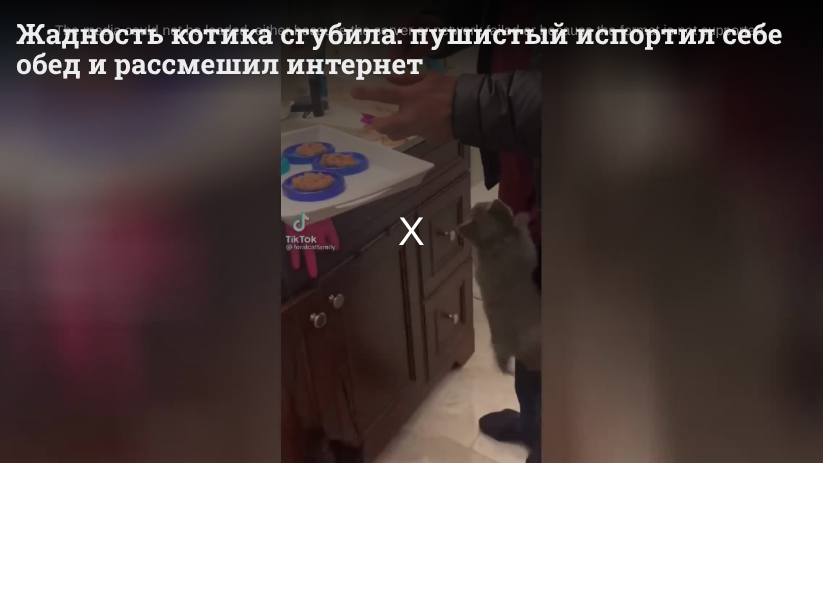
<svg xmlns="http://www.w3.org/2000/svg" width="823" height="616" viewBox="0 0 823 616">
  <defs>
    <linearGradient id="g1" gradientUnits="userSpaceOnUse" x1="412" y1="98" x2="412" y2="0"><stop offset="0" stop-color="#000" stop-opacity="0"/><stop offset="1" stop-color="#000" stop-opacity="0.8"/></linearGradient>
  </defs>
  <rect width="100%" height="100%" fill="#fff"/>
  <image x="0" y="0" width="823" height="463" href="img/1.png"/>
  <text x="55" y="35" font-family="Liberation Sans" font-size="14" fill="#fff">The media could not be loaded, either because the server or network failed or because the format is not supported.</text>
  <path d="M0 0h823v94H0z" fill="url(#g1)"/>
  <g font-family="Roboto Slab" font-size="28" font-weight="bold" fill="#ededed">
    <text x="16" y="74">обед и рассмешил интернет</text>
    <text x="16" y="44">Жадность котика сгубила: пушистый испортил себе</text>
  </g>
  <text x="398" y="245" font-family="Liberation Sans" font-size="40" fill="#fff">X</text>
</svg>
